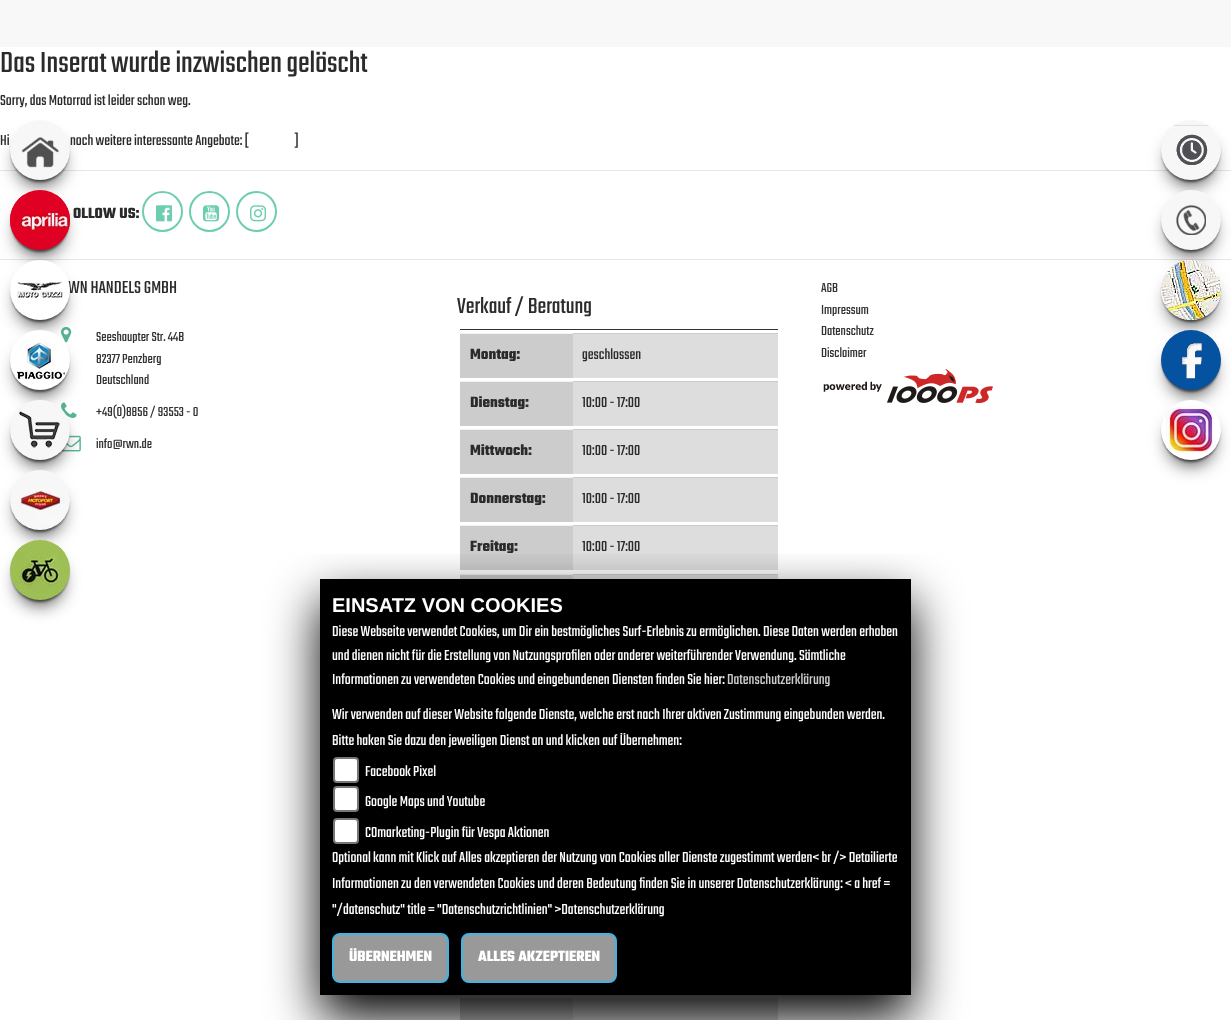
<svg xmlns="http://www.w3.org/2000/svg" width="1231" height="1020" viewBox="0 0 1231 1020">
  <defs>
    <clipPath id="clip1"><path d="M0 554h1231v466H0z"/></clipPath>
  </defs>
  <rect width="100%" height="100%" fill="#fff"/>
  <path d="M0 0h1231v47H0z" fill="#f8f8f8"/>
  <path d="M0 170h1231v1H0z" fill="#e6e6e6"/>
  <rect x="20" y="142" width="40" height="40" rx="20" fill="#000" filter="blur(10px)"/>
  <rect x="11" y="124" width="58" height="58" rx="29" fill="#00000080" filter="blur(1px)"/>
  <circle cx="40" cy="150" r="30" fill="#f7f7f7"/>
  <image x="21" y="137" width="38" height="31" href="img/1.png"/>
  <path d="M0 259h1231v1H0z" fill="#e6e6e6"/>
  <rect x="20" y="212" width="40" height="40" rx="20" fill="#000" filter="blur(10px)"/>
  <rect x="11" y="194" width="58" height="58" rx="29" fill="#00000080" filter="blur(1px)"/>
  <circle cx="40" cy="220" r="30" fill="#e00023"/>
  <image x="10" y="195" width="60" height="50" href="img/2.png"/>
  <image x="61" y="327" width="11" height="16" href="img/16.png"/>
  <rect x="20" y="282" width="40" height="40" rx="20" fill="#000" filter="blur(10px)"/>
  <rect x="11" y="264" width="58" height="58" rx="29" fill="#00000080" filter="blur(1px)"/>
  <image x="61" y="402" width="16" height="16" href="img/17.png"/>
  <rect x="20" y="352" width="40" height="40" rx="20" fill="#000" filter="blur(10px)"/>
  <rect x="11" y="334" width="58" height="58" rx="29" fill="#00000080" filter="blur(1px)"/>
  <circle cx="40" cy="360" r="30" fill="#fff"/>
  <image x="15" y="339" width="50" height="46" href="img/4.png"/>
  <image x="61" y="435" width="20" height="17" href="img/18.png"/>
  <rect x="20" y="422" width="40" height="40" rx="20" fill="#000" filter="blur(10px)"/>
  <rect x="11" y="404" width="58" height="58" rx="29" fill="#00000080" filter="blur(1px)"/>
  <circle cx="40" cy="430" r="30" fill="#f7f7f7"/>
  <image x="19" y="411" width="41" height="37" href="img/5.png"/>
  <rect x="20" y="492" width="40" height="40" rx="20" fill="#000" filter="blur(10px)"/>
  <rect x="11" y="474" width="58" height="58" rx="29" fill="#00000080" filter="blur(1px)"/>
  <circle cx="40" cy="500" r="30" fill="#f7f7f7"/>
  <image x="15" y="490" width="50" height="35" href="img/6.png"/>
  <rect x="20" y="562" width="40" height="40" rx="20" fill="#000" filter="blur(10px)"/>
  <rect x="11" y="544" width="58" height="58" rx="29" fill="#00000080" filter="blur(1px)"/>
  <circle cx="40" cy="570" r="30" fill="#9dbf53"/>
  <image x="15" y="545" width="50" height="50" href="img/7.png"/>
  <circle cx="162.5" cy="211.5" r="19.5" fill="none" stroke="#6dcdb1" stroke-width="2"/>
  <image x="156" y="205" width="17" height="17" href="img/8.png"/>
  <circle cx="209.5" cy="211.5" r="19.5" fill="none" stroke="#6dcdb1" stroke-width="2"/>
  <image x="203" y="205" width="17" height="17" href="img/9.png"/>
  <circle cx="256.5" cy="211.5" r="19.5" fill="none" stroke="#6dcdb1" stroke-width="2"/>
  <image x="250" y="205" width="17" height="17" href="img/10.png"/>
  <rect x="1171" y="142" width="40" height="40" rx="20" fill="#000" filter="blur(10px)"/>
  <rect x="1162" y="124" width="58" height="58" rx="29" fill="#00000080" filter="blur(1px)"/>
  <circle cx="1191" cy="150" r="30" fill="#f7f7f7"/>
  <image x="1166" y="125" width="43" height="40" href="img/11.png"/>
  <rect x="1171" y="212" width="40" height="40" rx="20" fill="#000" filter="blur(10px)"/>
  <rect x="1162" y="194" width="58" height="58" rx="29" fill="#00000080" filter="blur(1px)"/>
  <circle cx="1191" cy="220" r="30" fill="#f7f7f7"/>
  <image x="1176" y="205" width="30" height="30" href="img/12.png"/>
  <rect x="1171" y="282" width="40" height="40" rx="20" fill="#000" filter="blur(10px)"/>
  <rect x="1162" y="264" width="58" height="58" rx="29" fill="#00000080" filter="blur(1px)"/>
  <circle cx="1191" cy="290" r="30" fill="#f7f7f7"/>
  <image x="1161" y="260" width="60" height="60" href="img/13.png"/>
  <rect x="1171" y="352" width="40" height="40" rx="20" fill="#000" filter="blur(10px)"/>
  <rect x="1162" y="334" width="58" height="58" rx="29" fill="#00000080" filter="blur(1px)"/>
  <circle cx="1191" cy="360" r="30" fill="#0552a0"/>
  <image x="1182" y="343" width="20" height="36" href="img/14.png"/>
  <rect x="1171" y="422" width="40" height="40" rx="20" fill="#000" filter="blur(10px)"/>
  <rect x="1162" y="404" width="58" height="58" rx="29" fill="#00000080" filter="blur(1px)"/>
  <circle cx="1191" cy="430" r="30" fill="#fff"/>
  <image x="1166" y="405" width="50" height="50" href="img/15.png"/>
  <path d="M460 329h318v1H460z" fill="#333"/>
  <path d="M573 334h205v44H573z" fill="#ddd"/>
  <path d="M460 334h113v44H460z" fill="#ccc"/>
  <path d="M460 333h113v1H460z" fill="#f2f2f2"/>
  <path d="M573 333h205v1H573z" fill="#ccc"/>
  <path d="M573 382h205v44H573z" fill="#ddd"/>
  <path d="M460 382h113v44H460z" fill="#ccc"/>
  <path d="M460 381h113v1H460z" fill="#f2f2f2"/>
  <path d="M573 381h205v1H573z" fill="#ccc"/>
  <path d="M573 430h205v44H573z" fill="#ddd"/>
  <path d="M460 430h113v44H460z" fill="#ccc"/>
  <path d="M460 429h113v1H460z" fill="#f2f2f2"/>
  <path d="M573 429h205v1H573z" fill="#ccc"/>
  <path d="M573 478h205v44H573z" fill="#ddd"/>
  <path d="M460 478h113v44H460z" fill="#ccc"/>
  <path d="M460 477h113v1H460z" fill="#f2f2f2"/>
  <path d="M573 477h205v1H573z" fill="#ccc"/>
  <path d="M573 526h205v44H573z" fill="#ddd"/>
  <path d="M460 526h113v44H460z" fill="#ccc"/>
  <path d="M460 525h113v1H460z" fill="#f2f2f2"/>
  <path d="M573 525h205v1H573z" fill="#ccc"/>
  <path d="M573 575h205v4H573z" fill="#ddd"/>
  <path d="M460 575h113v4H460z" fill="#ccc"/>
  <path d="M460 574h113v1H460z" fill="#f2f2f2"/>
  <path d="M573 574h205v1H573z" fill="#ccc"/>
  <path d="M573 998h205v22H573z" fill="#ddd"/>
  <path d="M460 998h113v22H460z" fill="#ccc"/>
  <image x="823" y="369" width="170" height="34" href="img/19.png"/>
  <g clip-path="url(#clip1)">
    <path d="M320 601h591v416H320z" fill="#000" filter="blur(25px)"/>
  </g>
  <path d="M320 579h591v416H320z" fill="#000"/>
  <rect x="334" y="758" width="24" height="24" rx="3" fill="#fff" stroke="#767676" stroke-width="2"/>
  <rect x="334" y="787" width="24" height="24" rx="3" fill="#fff" stroke="#767676" stroke-width="2"/>
  <rect x="334" y="819" width="24" height="24" rx="3" fill="#fff" stroke="#767676" stroke-width="2"/>
  <rect x="333" y="934" width="115" height="48" rx="7" fill="#999" stroke="#40b4e5" stroke-width="2"/>
  <rect x="462" y="934" width="154" height="48" rx="7" fill="#999" stroke="#40b4e5" stroke-width="2"/>
  <text x="0" y="72" font-family="Teko" font-size="32" fill="#292b2c">Das Inserat wurde inzwischen gelöscht</text>
  <g font-family="Teko" font-size="16" fill="#292b2c">
    <text x="0" y="105">Sorry, das Motorrad ist leider schon weg.</text>
    <text x="0" y="145">Hi</text>
    <text x="70" y="145">noch weitere interessante Angebote: [</text>
    <text x="294" y="145">]</text>
  </g>
  <text x="73" y="218" font-family="Teko" font-size="16" font-weight="bold" fill="#292b2c">OLLOW US:</text>
  <text x="68" y="293" font-family="Teko" font-size="19.25" fill="#292b2c">WN HANDELS GMBH</text>
  <circle cx="40" cy="290" r="30" fill="#fff"/>
  <image x="15" y="281" width="50" height="34" href="img/3.png"/>
  <g font-family="Teko" font-size="14.5" fill="#333">
    <text x="96" y="341">Seeshaupter Str. 44B</text>
    <text x="96" y="363">82377 Penzberg</text>
    <text x="96" y="384">Deutschland</text>
    <text x="96" y="416">+49(0)8856 / 93553 - 0</text>
    <text x="96" y="448">info@rwn.de</text>
  </g>
  <text x="457" y="313" font-family="Teko" font-size="24" fill="#292b2c">Verkauf / Beratung</text>
  <text x="470" y="359" font-family="Teko" font-size="16" font-weight="bold" fill="#292b2c">Montag:</text>
  <text x="582" y="359" font-family="Teko" font-size="16" fill="#292b2c">geschlossen</text>
  <text x="470" y="407" font-family="Teko" font-size="16" font-weight="bold" fill="#292b2c">Dienstag:</text>
  <text x="582" y="407" font-family="Teko" font-size="16" fill="#292b2c">10:00 - 17:00</text>
  <text x="470" y="455" font-family="Teko" font-size="16" font-weight="bold" fill="#292b2c">Mittwoch:</text>
  <text x="582" y="455" font-family="Teko" font-size="16" fill="#292b2c">10:00 - 17:00</text>
  <text x="470" y="503" font-family="Teko" font-size="16" font-weight="bold" fill="#292b2c">Donnerstag:</text>
  <text x="582" y="503" font-family="Teko" font-size="16" fill="#292b2c">10:00 - 17:00</text>
  <text x="470" y="551" font-family="Teko" font-size="16" font-weight="bold" fill="#292b2c">Freitag:</text>
  <text x="582" y="551" font-family="Teko" font-size="16" fill="#292b2c">10:00 - 17:00</text>
  <g font-family="Teko" font-size="14.5" fill="#333">
    <text x="821" y="292">AGB</text>
    <text x="821" y="314">Impressum</text>
    <text x="821" y="335">Datenschutz</text>
    <text x="821" y="357">Disclaimer</text>
  </g>
  <text x="332" y="612" font-family="Liberation Sans" font-size="20" font-weight="bold" fill="#fff">EINSATZ VON COOKIES</text>
  <g font-family="Teko" font-size="16" fill="#fff">
    <text x="332" y="636">Diese Webseite verwendet Cookies, um Dir ein bestmögliches Surf-Erlebnis zu ermöglichen. Diese Daten werden erhoben</text>
    <text x="332" y="660">und dienen nicht für die Erstellung von Nutzungsprofilen oder anderer weiterführender Verwendung. Sämtliche</text>
    <text x="332" y="684">Informationen zu verwendeten Cookies und eingebundenen Diensten finden Sie hier:</text>
  </g>
  <text x="727" y="684" font-family="Teko" font-size="16" fill="#ccc">Datenschutzerklärung</text>
  <g font-family="Teko" font-size="16" fill="#fff">
    <text x="332" y="719">Wir verwenden auf dieser Website folgende Dienste, welche erst nach Ihrer aktiven Zustimmung eingebunden werden.</text>
    <text x="332" y="745">Bitte haken Sie dazu den jeweiligen Dienst an und klicken auf Übernehmen:</text>
    <text x="365" y="776">Facebook Pixel</text>
    <text x="365" y="806">Google Maps und Youtube</text>
    <text x="365" y="837">COmarketing-Plugin für Vespa Aktionen</text>
    <text x="332" y="862">Optional kann mit Klick auf Alles akzeptieren der Nutzung von Cookies aller Dienste zugestimmt werden&lt; br /&gt; Detailierte</text>
    <text x="332" y="888">Informationen zu den verwendeten Cookies und deren Bedeutung finden Sie in unserer Datenschutzerklärung: &lt; a href =</text>
    <text x="332" y="914">"/datenschutz" title = "Datenschutzrichtlinien" &gt;Datenschutzerklärung</text>
  </g>
  <g font-family="Teko" font-size="16" font-weight="bold" fill="#fff">
    <text x="349" y="961">ÜBERNEHMEN</text>
    <text x="478" y="961">ALLES AKZEPTIEREN</text>
  </g>
</svg>
